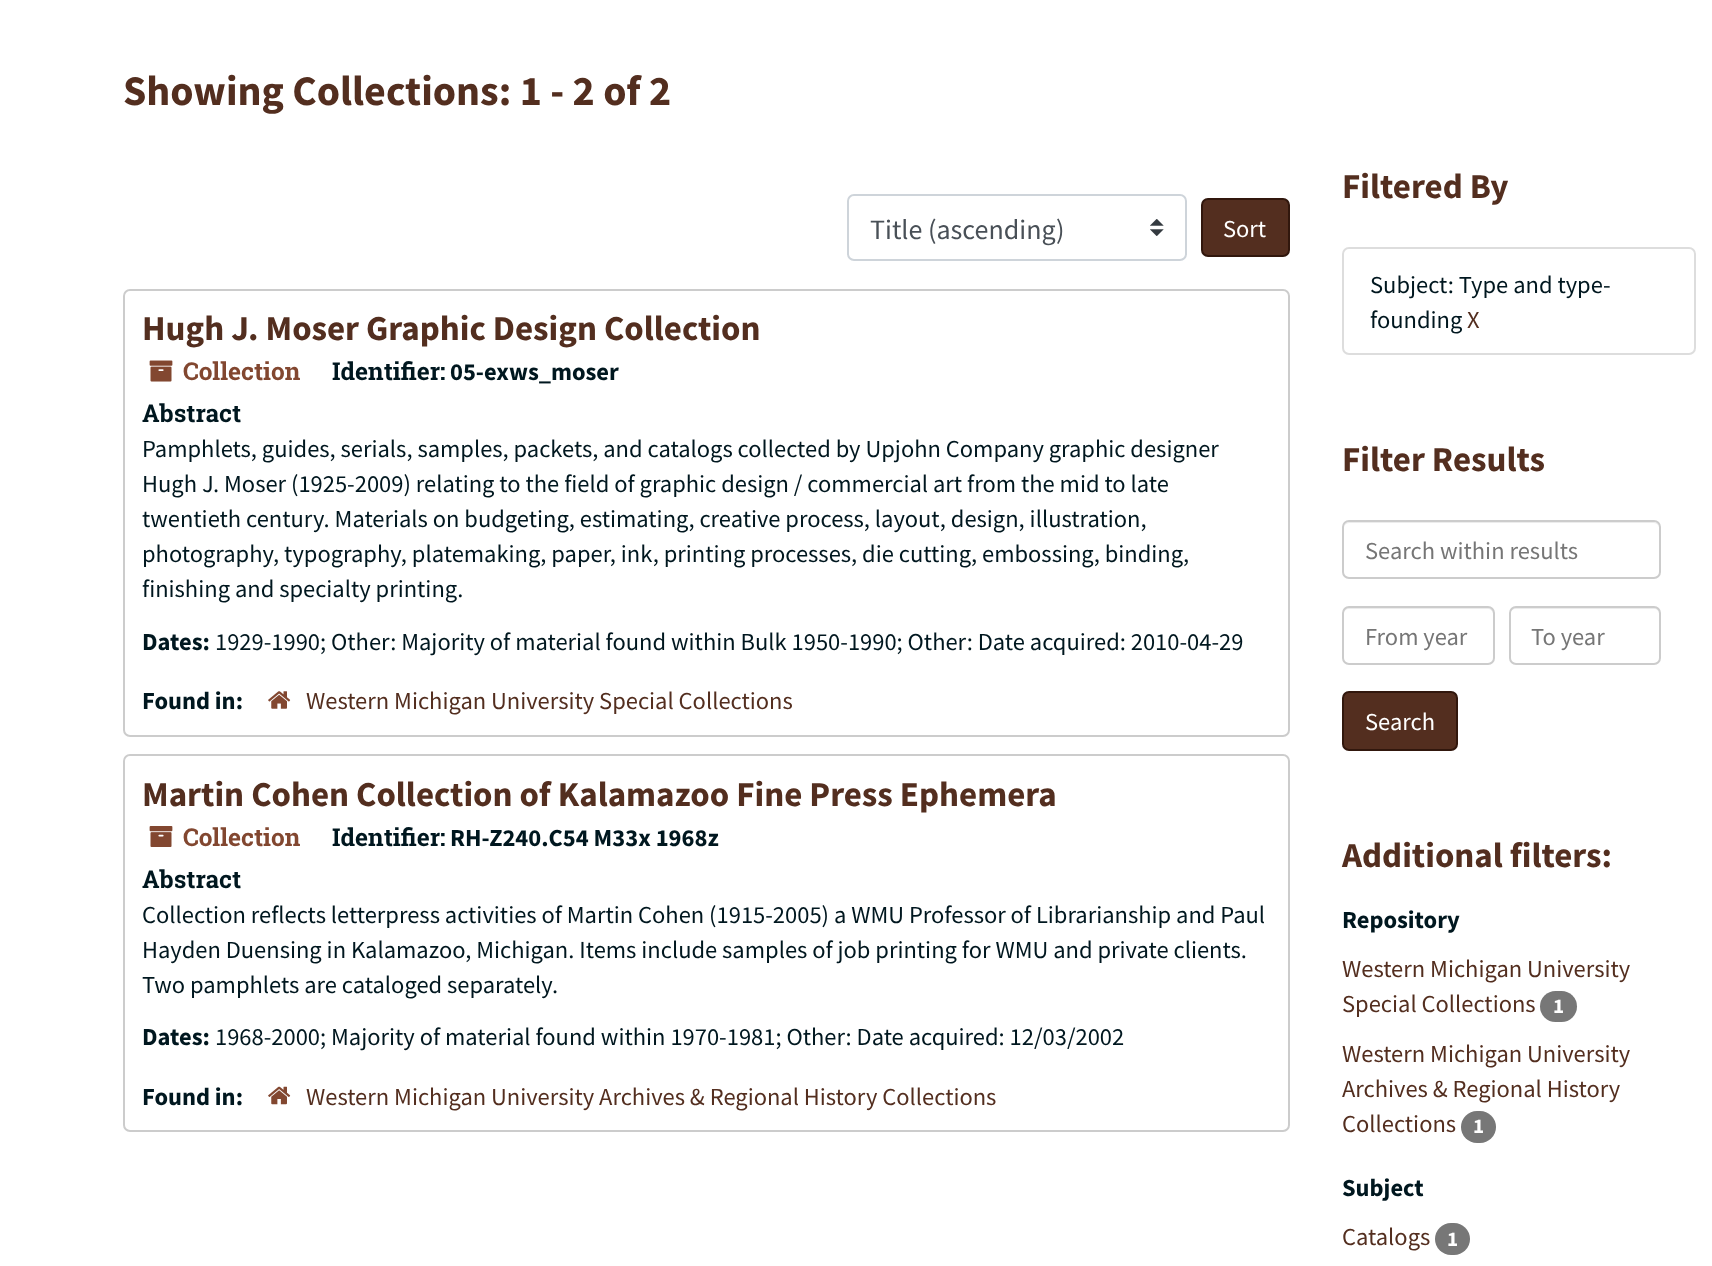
<svg xmlns="http://www.w3.org/2000/svg" width="1712" height="1266" viewBox="0 0 1712 1266">
  <rect width="100%" height="100%" fill="#fff"/>
  <image x="1150" y="219" width="14" height="17" href="img/1.png"/>
  <rect x="848" y="195" width="338" height="65" rx="6" fill="none" stroke="#ced4da" stroke-width="2"/>
  <rect x="1202" y="199" width="87" height="57" rx="6" fill="#532e1f" stroke="#31170d" stroke-width="2"/>
  <rect x="124" y="290" width="1165" height="446" rx="6" fill="none" stroke="#ccc" stroke-width="2"/>
  <image x="149" y="360" width="24" height="22" href="img/2.png"/>
  <image x="268" y="691" width="23" height="18" href="img/3.png"/>
  <rect x="124" y="755" width="1165" height="376" rx="6" fill="none" stroke="#ccc" stroke-width="2"/>
  <image x="149" y="826" width="24" height="21" href="img/4.png"/>
  <image x="268" y="1086" width="23" height="19" href="img/5.png"/>
  <rect x="1343" y="248" width="352" height="106" rx="6" fill="none" stroke="#ddd" stroke-width="2"/>
  <path d="M1349 523H1654C1657 523 1659 526 1659 528C1659 525 1657 522 1654 522H1349C1346 522 1344 525 1344 528C1344 526 1346 523 1349 523Z" fill="#ececec"/>
  <rect x="1343" y="521" width="317" height="57" rx="6" fill="none" stroke="#ccc" stroke-width="2"/>
  <path d="M1349 609H1488C1490 609 1493 611 1493 614V612C1493 609 1491 607 1488 607H1349C1346 607 1344 609 1344 612V614C1344 611 1346 609 1349 609Z" fill="#ececec"/>
  <rect x="1343" y="607" width="151" height="57" rx="6" fill="none" stroke="#ccc" stroke-width="2"/>
  <path d="M1516 609H1654C1657 609 1659 611 1659 614V612C1659 609 1657 607 1654 607H1515C1512 607 1510 609 1510 612V614C1510 611 1513 609 1516 609Z" fill="#ececec"/>
  <rect x="1510" y="607" width="150" height="57" rx="6" fill="none" stroke="#ccc" stroke-width="2"/>
  <rect x="1343" y="692" width="114" height="58" rx="6" fill="#532e1f" stroke="#31170d" stroke-width="2"/>
  <rect x="1540" y="991" width="37" height="31" rx="15.5" fill="#777"/>
  <rect x="1461" y="1111" width="35" height="32" rx="16" fill="#777"/>
  <rect x="1435" y="1223" width="35" height="32" rx="16" fill="#777"/>
  <text x="123" y="105" font-family="Source Sans Pro" font-size="42" font-weight="bold" fill="#532e1f">Showing Collections: 1 - 2 of 2</text>
  <text x="870" y="239" font-family="Source Sans Pro" font-size="28" fill="#495057">Title (ascending)</text>
  <text x="1223" y="237" font-family="Source Sans Pro" font-size="24.5" fill="#fff">Sort</text>
  <text x="142" y="340" font-family="Source Sans Pro" font-size="35" font-weight="bold" fill="#532e1f">Hugh J. Moser Graphic Design Collection</text>
  <text x="183" y="380" font-family="Roboto Slab" font-size="24.5" font-weight="bold" fill="#824730">Collection</text>
  <text x="332" y="380" font-family="Roboto Slab" font-size="24.5" font-weight="bold" fill="#00171f">Identifier:</text>
  <text x="450" y="380" font-family="Source Sans Pro" font-size="24.5" font-weight="bold" fill="#00171f">05-exws_moser</text>
  <text x="142" y="422" font-family="Roboto Slab" font-size="24.5" font-weight="bold" fill="#00171f">Abstract</text>
  <g font-family="Source Sans Pro" font-size="24.5" fill="#00171f">
    <text x="142" y="457">Pamphlets, guides, serials, samples, packets, and catalogs collected by Upjohn Company graphic designer</text>
    <text x="142" y="492">Hugh J. Moser (1925-2009) relating to the field of graphic design / commercial art from the mid to late</text>
    <text x="142" y="527">twentieth century. Materials on budgeting, estimating, creative process, layout, design, illustration,</text>
    <text x="142" y="562">photography, typography, platemaking, paper, ink, printing processes, die cutting, embossing, binding,</text>
    <text x="142" y="597">finishing and specialty printing.</text>
  </g>
  <text x="142" y="650" font-family="Source Sans Pro" font-size="24.5" font-weight="bold" fill="#00171f">Dates:</text>
  <text x="215" y="650" font-family="Source Sans Pro" font-size="24.5" fill="#00171f">1929-1990; Other: Majority of material found within Bulk 1950-1990; Other: Date acquired: 2010-04-29</text>
  <text x="142" y="709" font-family="Source Sans Pro" font-size="24.5" font-weight="bold" fill="#00171f">Found in:</text>
  <text x="306" y="709" font-family="Source Sans Pro" font-size="24.5" fill="#532e1f">Western Michigan University Special Collections</text>
  <text x="142" y="806" font-family="Source Sans Pro" font-size="35" font-weight="bold" fill="#532e1f">Martin Cohen Collection of Kalamazoo Fine Press Ephemera</text>
  <text x="183" y="846" font-family="Roboto Slab" font-size="24.5" font-weight="bold" fill="#824730">Collection</text>
  <text x="332" y="846" font-family="Roboto Slab" font-size="24.5" font-weight="bold" fill="#00171f">Identifier:</text>
  <text x="450" y="846" font-family="Source Sans Pro" font-size="24.5" font-weight="bold" fill="#00171f">RH-Z240.C54 M33x 1968z</text>
  <text x="142" y="888" font-family="Roboto Slab" font-size="24.5" font-weight="bold" fill="#00171f">Abstract</text>
  <g font-family="Source Sans Pro" font-size="24.5" fill="#00171f">
    <text x="142" y="923">Collection reflects letterpress activities of Martin Cohen (1915-2005) a WMU Professor of Librarianship and Paul</text>
    <text x="142" y="958">Hayden Duensing in Kalamazoo, Michigan. Items include samples of job printing for WMU and private clients.</text>
    <text x="142" y="993">Two pamphlets are cataloged separately.</text>
  </g>
  <text x="142" y="1045" font-family="Source Sans Pro" font-size="24.5" font-weight="bold" fill="#00171f">Dates:</text>
  <text x="215" y="1045" font-family="Source Sans Pro" font-size="24.5" fill="#00171f">1968-2000; Majority of material found within 1970-1981; Other: Date acquired: 12/03/2002</text>
  <text x="142" y="1105" font-family="Source Sans Pro" font-size="24.5" font-weight="bold" fill="#00171f">Found in:</text>
  <text x="306" y="1105" font-family="Source Sans Pro" font-size="24.5" fill="#532e1f">Western Michigan University Archives &amp; Regional History Collections</text>
  <text x="1342" y="198" font-family="Source Sans Pro" font-size="35" font-weight="bold" fill="#532e1f">Filtered By</text>
  <g font-family="Source Sans Pro" font-size="24.5" fill="#00171f">
    <text x="1370" y="293">Subject: Type and type-</text>
    <text x="1370" y="328">founding</text>
  </g>
  <text x="1467" y="328" font-family="Source Sans Pro" font-size="24.5" fill="#532e1f">X</text>
  <text x="1342" y="471" font-family="Source Sans Pro" font-size="35" font-weight="bold" fill="#532e1f">Filter Results</text>
  <g font-family="Source Sans Pro" font-size="24.5" fill="#767676">
    <text x="1365" y="559">Search within results</text>
    <text x="1365" y="645">From year</text>
    <text x="1531" y="645">To year</text>
  </g>
  <text x="1365" y="730" font-family="Source Sans Pro" font-size="24.5" fill="#fff">Search</text>
  <text x="1342" y="867" font-family="Source Sans Pro" font-size="35" font-weight="bold" fill="#532e1f">Additional filters:</text>
  <text x="1342" y="928" font-family="Source Sans Pro" font-size="24.5" font-weight="bold" fill="#00171f">Repository</text>
  <g font-family="Source Sans Pro" font-size="24.5" fill="#532e1f">
    <text x="1342" y="977">Western Michigan University</text>
    <text x="1342" y="1012">Special Collections</text>
  </g>
  <text x="1553" y="1013" font-family="Source Sans Pro" font-size="21" font-weight="bold" fill="#fff">1</text>
  <g font-family="Source Sans Pro" font-size="24.5" fill="#532e1f">
    <text x="1342" y="1062">Western Michigan University</text>
    <text x="1342" y="1097">Archives &amp; Regional History</text>
    <text x="1342" y="1132">Collections</text>
  </g>
  <text x="1473" y="1133" font-family="Source Sans Pro" font-size="21" font-weight="bold" fill="#fff">1</text>
  <text x="1342" y="1196" font-family="Source Sans Pro" font-size="24.5" font-weight="bold" fill="#00171f">Subject</text>
  <text x="1342" y="1245" font-family="Source Sans Pro" font-size="24.5" fill="#532e1f">Catalogs</text>
  <text x="1447" y="1246" font-family="Source Sans Pro" font-size="21" font-weight="bold" fill="#fff">1</text>
</svg>
